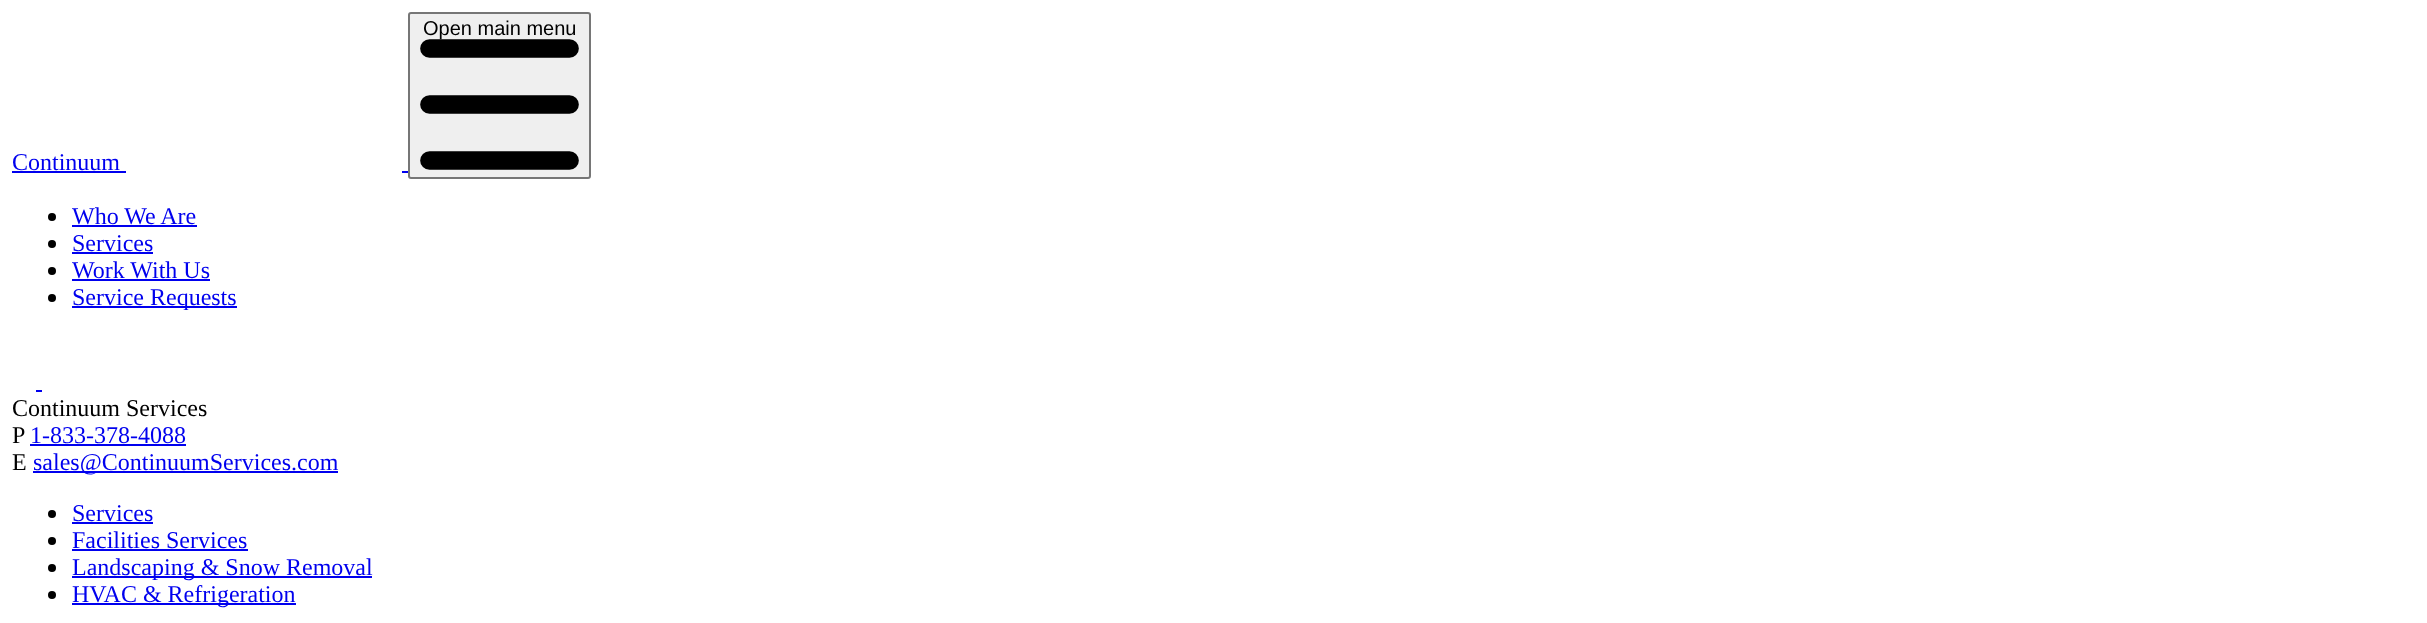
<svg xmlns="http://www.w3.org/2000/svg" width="2427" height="623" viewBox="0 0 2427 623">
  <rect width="100%" height="100%" fill="#fff"/>
  <rect x="409" y="13" width="181" height="165" rx="2" fill="#efefef" stroke="#767676" stroke-width="2"/>
  <path d="M429.5 48.5H569.5M429.5 104.5H569.5M429.5 160.5H569.5" fill="none" stroke="#000" stroke-width="18.7" stroke-linecap="round" stroke-linejoin="round"/>
  <path d="M12 171h114v2H12z" fill="#00e"/>
  <path d="M402 171h6v2H402z" fill="#00e"/>
  <circle cx="52" cy="217" r="4" fill="#000"/>
  <path d="M72 225h125v2H72z" fill="#00e"/>
  <circle cx="52" cy="244" r="4" fill="#000"/>
  <path d="M72 252h81v2H72z" fill="#00e"/>
  <circle cx="52" cy="271" r="4" fill="#000"/>
  <path d="M72 279h138v2H72z" fill="#00e"/>
  <circle cx="52" cy="298" r="4" fill="#000"/>
  <path d="M72 306h165v2H72z" fill="#00e"/>
  <path d="M36 390h6v2H36z" fill="#00e"/>
  <path d="M30 444h156v2H30z" fill="#00e"/>
  <path d="M33 471h305v2H33z" fill="#00e"/>
  <circle cx="52" cy="514" r="4" fill="#000"/>
  <path d="M72 522h81v2H72z" fill="#00e"/>
  <circle cx="52" cy="541" r="4" fill="#000"/>
  <path d="M72 549h176v2H72z" fill="#00e"/>
  <circle cx="52" cy="568" r="4" fill="#000"/>
  <path d="M72 576h300v2H72z" fill="#00e"/>
  <circle cx="52" cy="595" r="4" fill="#000"/>
  <path d="M72 603h224v2H72z" fill="#00e"/>
  <text x="423" y="35" font-family="Liberation Sans" font-size="20" fill="#000">Open main menu</text>
  <g font-family="Liberation Serif" font-size="24" fill="#00e">
    <text x="12" y="170">Continuum</text>
    <text x="72" y="224">Who We Are</text>
    <text x="72" y="251">Services</text>
    <text x="72" y="278">Work With Us</text>
    <text x="72" y="305">Service Requests</text>
  </g>
  <g font-family="Liberation Serif" font-size="24" fill="#000">
    <text x="12" y="416">Continuum Services</text>
    <text x="12" y="443">P</text>
  </g>
  <text x="30" y="443" font-family="Liberation Serif" font-size="24" fill="#00e">1-833-378-4088</text>
  <text x="12" y="470" font-family="Liberation Serif" font-size="24" fill="#000">E</text>
  <g font-family="Liberation Serif" font-size="24" fill="#00e">
    <text x="33" y="470">sales@ContinuumServices.com</text>
    <text x="72" y="521">Services</text>
    <text x="72" y="548">Facilities Services</text>
    <text x="72" y="575">Landscaping &amp; Snow Removal</text>
    <text x="72" y="602">HVAC &amp; Refrigeration</text>
  </g>
</svg>
